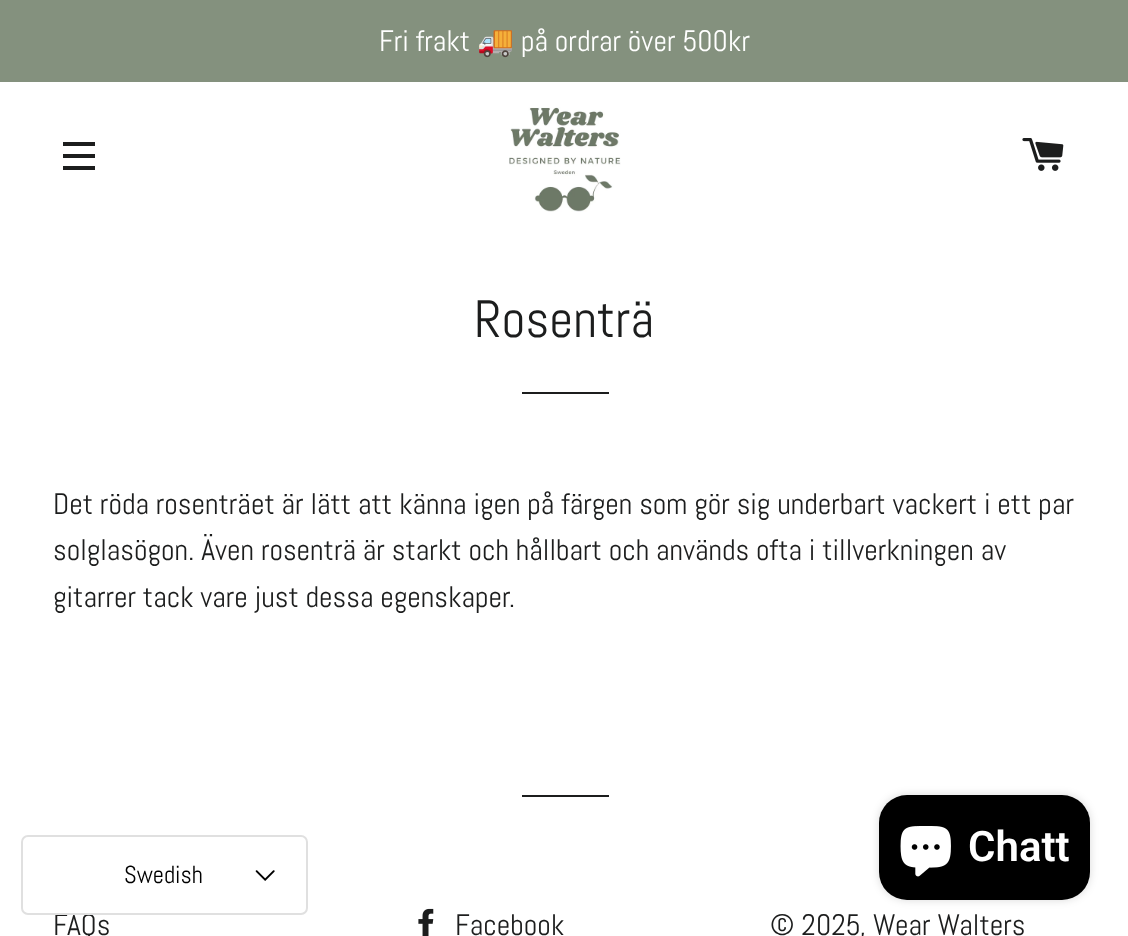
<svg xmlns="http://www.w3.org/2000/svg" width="1128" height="936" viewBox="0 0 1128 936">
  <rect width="100%" height="100%" fill="#fff"/>
  <path d="M0 0h1128v82H0z" fill="#84917e"/>
  <path d="M63 142h32v4H63z" fill="#1c1d1d"/>
  <path d="M63 154h32v4H63z" fill="#1c1d1d"/>
  <path d="M63 166h32v4H63z" fill="#1c1d1d"/>
  <image x="509" y="107" width="112" height="105" href="img/1.png"/>
  <image x="1022" y="138" width="42" height="33" href="img/2.png"/>
  <path d="M522 392h87v2H522z" fill="#1c1d1d"/>
  <path d="M522 795h87v2H522z" fill="#1c1d1d"/>
  <image x="418" y="908" width="16" height="28" href="img/3.png"/>
  <rect x="879" y="795" width="211" height="105" rx="28" fill="#00000026" filter="blur(4.5px)"/>
  <rect x="879" y="795" width="211" height="105" rx="28" fill="#000"/>
  <image x="900" y="826" width="51" height="51" href="img/4.png"/>
  <text x="379" y="51" font-family="Abel" font-size="29.75" fill="#fff">Fri frakt</text>
  <text x="477" y="51" font-family="Noto Color Emoji" font-size="29.75" fill="#fff">🚚</text>
  <text x="521" y="51" font-family="Abel" font-size="29.75" fill="#fff">på ordrar över 500kr</text>
  <text x="474" y="337" font-family="Abel" font-size="52.5" fill="#1c1d1d">Rosenträ</text>
  <g font-family="Abel" font-size="29.75" fill="#1c1d1d">
    <text x="53" y="514">Det röda rosenträet är lätt att känna igen på färgen som gör sig underbart vackert i ett par</text>
    <text x="53" y="560">solglasögon. Även rosenträ är starkt och hållbart och används ofta i tillverkningen av</text>
    <text x="53" y="607">gitarrer tack vare just dessa egenskaper.</text>
    <text x="53" y="935">FAQs</text>
    <text x="455" y="935">Facebook</text>
    <text x="770" y="935">© 2025, Wear Walters</text>
  </g>
  <text x="968" y="861" font-family="Roboto" font-size="42" font-weight="600" fill="#fff">Chatt</text>
  <rect x="22" y="836" width="285" height="78" rx="6" fill="#fff" stroke="#e0e0e0" stroke-width="2"/>
  <text x="124" y="883" font-family="Abel" font-size="24.5" fill="#000">Swedish</text>
  <image x="255" y="870" width="20" height="11" href="img/5.png"/>
</svg>
